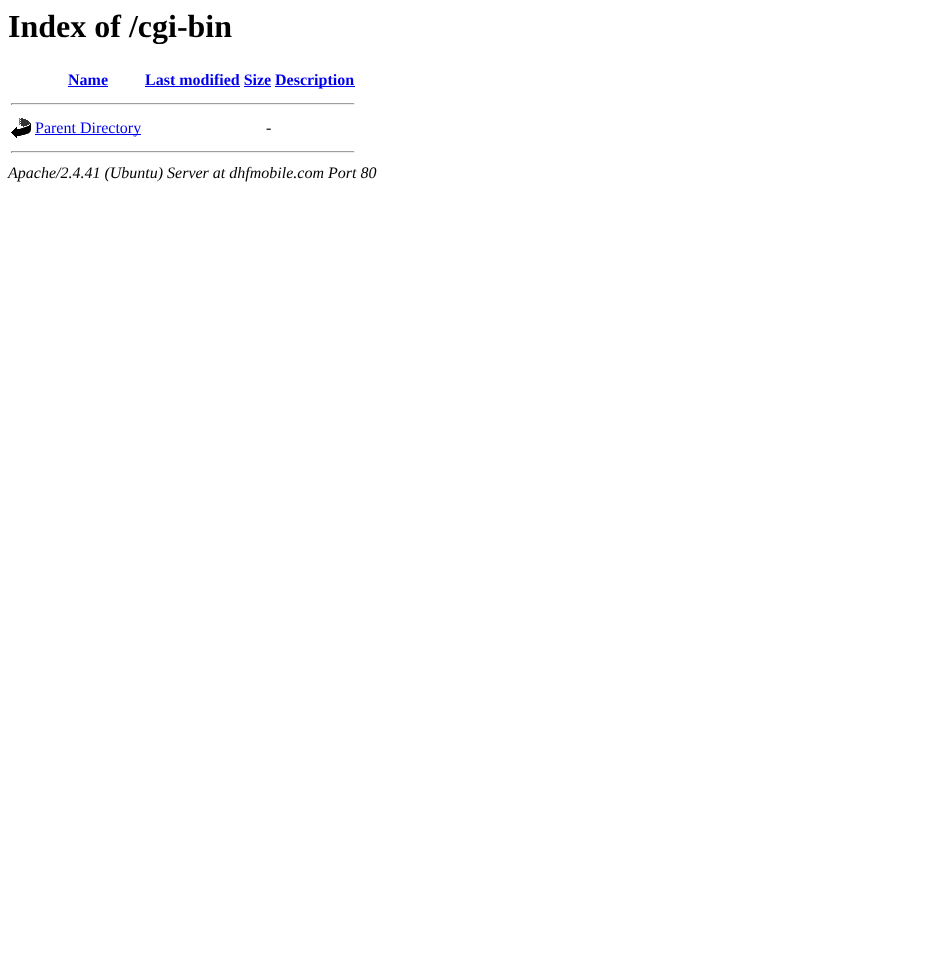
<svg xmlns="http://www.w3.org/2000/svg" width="946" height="974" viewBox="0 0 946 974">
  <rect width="100%" height="100%" fill="#fff"/>
  <path d="M68 86h40v1H68z" fill="#00e"/>
  <path d="M145 86h95v1H145z" fill="#00e"/>
  <path d="M275 86h80v1H275z" fill="#00e"/>
  <path d="M244 86h27v1H244z" fill="#00e"/>
  <path d="M11 103h344v1H11z" fill="#9f9f9f"/>
  <path d="M354 103h1v2H354z" fill="#eee"/>
  <path d="M11 104h344v1H11z" fill="#eee"/>
  <path d="M11 103h1v2H11z" fill="#9f9f9f"/>
  <image x="11" y="118" width="20" height="20" href="img/1.png"/>
  <path d="M35 134h106v1H35z" fill="#00e"/>
  <path d="M11 151h344v1H11z" fill="#9f9f9f"/>
  <path d="M354 151h1v2H354z" fill="#eee"/>
  <path d="M11 152h344v1H11z" fill="#eee"/>
  <path d="M11 151h1v2H11z" fill="#9f9f9f"/>
  <text x="8" y="37" font-family="Liberation Serif" font-size="32" font-weight="bold" fill="#000">Index of /cgi-bin</text>
  <g font-family="Liberation Serif" font-size="16" font-weight="bold" fill="#00e">
    <text x="68" y="85">Name</text>
    <text x="145" y="85">Last modified Size</text>
    <text x="275" y="85">Description</text>
  </g>
  <text x="35" y="133" font-family="Liberation Serif" font-size="16" fill="#00e">Parent Directory</text>
  <text x="266" y="133" font-family="Liberation Serif" font-size="16" fill="#000">-</text>
  <text x="8" y="178" font-family="Liberation Serif" font-size="16" font-style="italic" fill="#000">Apache/2.4.41 (Ubuntu) Server at dhfmobile.com Port 80</text>
</svg>
